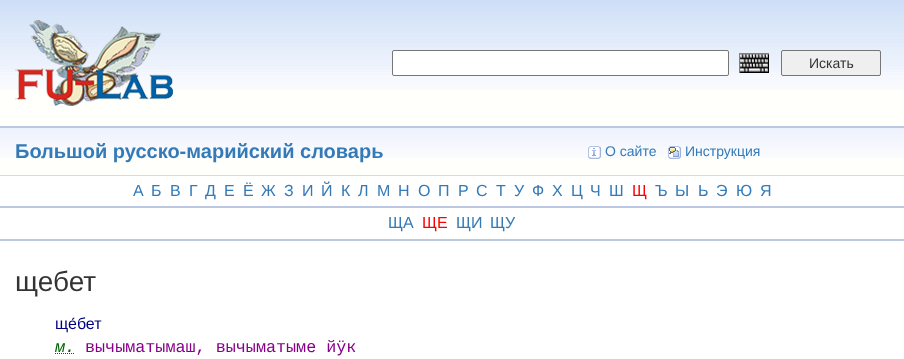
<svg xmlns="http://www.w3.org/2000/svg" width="904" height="359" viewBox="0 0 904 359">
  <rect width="100%" height="100%" fill="#fff"/>
  <path d="M0 90h904v36H0z" fill="#fffffc"/>
  <image x="0" y="0" width="904" height="90" href="img/1.png"/>
  <image x="15" y="20" width="158" height="86" href="img/2.png"/>
  <rect x="392.5" y="50.5" width="336" height="25" rx="1.5" fill="#fff" stroke="#767676"/>
  <image x="739" y="53" width="30" height="20" href="img/3.png"/>
  <rect x="781.5" y="50.5" width="99" height="25" rx="1.5" fill="#efefef" stroke="#767676"/>
  <path d="M0 158h904v17H0z" fill="#fffffc"/>
  <image x="0" y="128" width="904" height="30" href="img/4.png"/>
  <path d="M0 126h904v2H0z" fill="#bcc8e2"/>
  <path d="M0 175h904v1H0z" fill="#cedbf0"/>
  <image x="588" y="146" width="13" height="13" href="img/5.png"/>
  <image x="668" y="146" width="13" height="13" href="img/6.png"/>
  <path d="M0 206h904v2H0z" fill="#bcc8e2"/>
  <path d="M0 239h904v2H0z" fill="#bcc8e2"/>
  <path d="M55 353.5H75" fill="none" stroke="#808" stroke-dasharray="1 1"/>
  <text x="809" y="68" font-family="Liberation Sans" font-size="14" fill="#333">Искать</text>
  <text x="15" y="158" font-family="Liberation Sans" font-size="20" font-weight="bold" fill="#337ab7">Большой русско-марийский словарь</text>
  <g font-family="Liberation Sans" font-size="14" fill="#337ab7">
    <text x="605" y="156">О сайте</text>
    <text x="685" y="156">Инструкция</text>
  </g>
  <g font-family="Liberation Sans" font-size="16" fill="#337ab7">
    <text x="133" y="196">А</text>
    <text x="151" y="196">Б</text>
    <text x="170" y="196">В</text>
    <text x="189" y="196">Г</text>
    <text x="205" y="196">Д</text>
    <text x="224" y="196">Е</text>
    <text x="243" y="196">Ё</text>
    <text x="261" y="196">Ж</text>
    <text x="284" y="196">З</text>
    <text x="302" y="196">И</text>
    <text x="321" y="196">Й</text>
    <text x="341" y="196">К</text>
    <text x="358" y="196">Л</text>
    <text x="377" y="196">М</text>
    <text x="398" y="196">Н</text>
    <text x="418" y="196">О</text>
    <text x="438" y="196">П</text>
    <text x="458" y="196">Р</text>
    <text x="476" y="196">С</text>
    <text x="496" y="196">Т</text>
    <text x="514" y="196">У</text>
    <text x="532" y="196">Ф</text>
    <text x="552" y="196">Х</text>
    <text x="571" y="196">Ц</text>
    <text x="590" y="196">Ч</text>
    <text x="609" y="196">Ш</text>
  </g>
  <text x="632" y="196" font-family="Liberation Sans" font-size="16" fill="#f00">Щ</text>
  <g font-family="Liberation Sans" font-size="16" fill="#337ab7">
    <text x="655" y="196">Ъ</text>
    <text x="675" y="196">Ы</text>
    <text x="698" y="196">Ь</text>
    <text x="716" y="196">Э</text>
    <text x="736" y="196">Ю</text>
    <text x="760" y="196">Я</text>
    <text x="388" y="228">ЩА</text>
  </g>
  <text x="422" y="228" font-family="Liberation Sans" font-size="16" fill="#f00">ЩЕ</text>
  <g font-family="Liberation Sans" font-size="16" fill="#337ab7">
    <text x="456" y="228">ЩИ</text>
    <text x="490" y="228">ЩУ</text>
  </g>
  <text x="15" y="291" font-family="Liberation Sans" font-size="28" fill="#333">щебет</text>
  <text x="55" y="329" font-family="Liberation Sans" font-size="16" fill="#000080">ще́бет</text>
  <text x="55" y="352" font-family="Liberation Mono" font-size="16.75" font-style="italic" fill="#060">м.</text>
  <text x="85" y="352" font-family="Liberation Mono" font-size="16.75" fill="#808">вычыматымаш, вычыматыме йӱк</text>
</svg>
